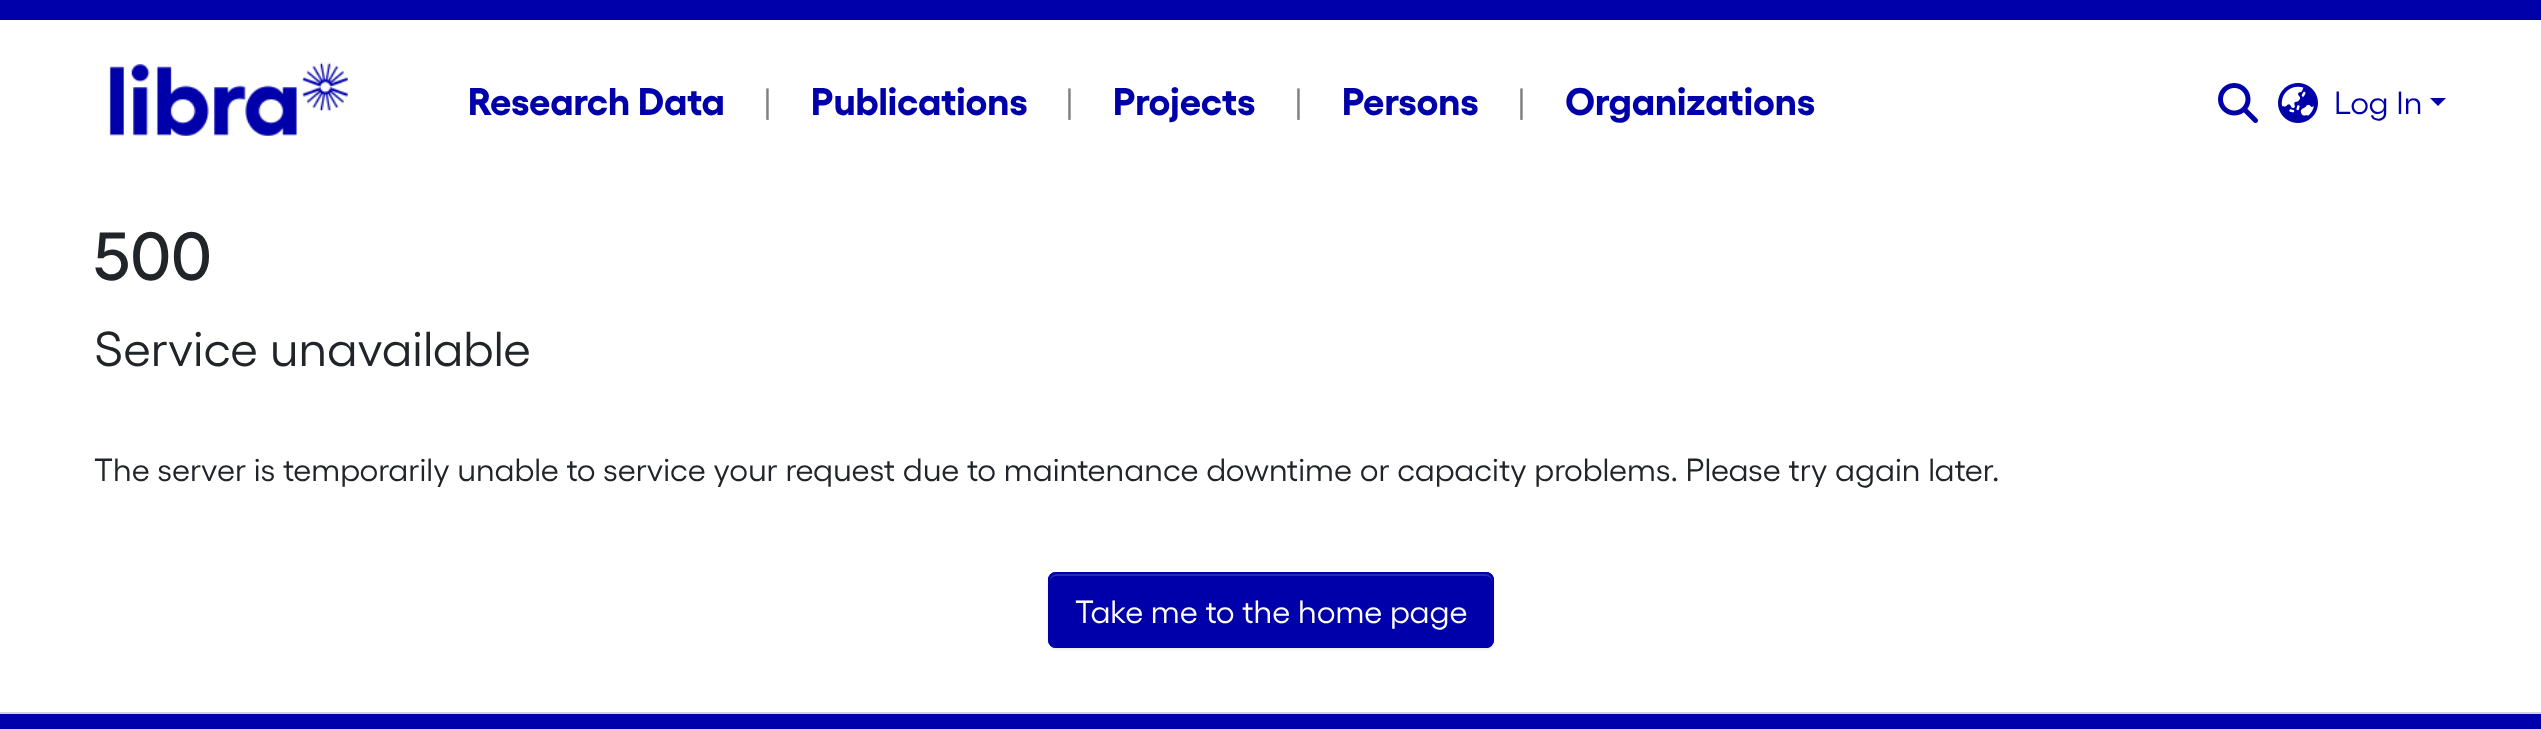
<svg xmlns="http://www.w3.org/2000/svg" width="2541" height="729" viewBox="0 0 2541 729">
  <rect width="100%" height="100%" fill="#fff"/>
  <path d="M0 0h2541v20H0z" fill="#00a"/>
  <image x="109" y="62" width="239" height="74" href="img/1.png"/>
  <image x="2218" y="83" width="40" height="40" href="img/2.png"/>
  <image x="2278" y="83" width="40" height="40" href="img/3.png"/>
  <path d="M2430 98H2446L2438 106Z" fill="#00a"/>
  <rect x="1048" y="574" width="446" height="76" rx="8" fill="#00000012" filter="blur(1px)"/>
  <rect x="1048" y="572" width="446" height="76" rx="8" fill="#00a"/>
  <path d="M1056 576H1486C1489 576 1492 579 1492 582V580C1492 577 1489 574 1486 574H1056C1053 574 1050 577 1050 580V582C1050 579 1053 576 1056 576Z" fill="#2626b7"/>
  <rect x="1049" y="573" width="444" height="74" rx="7" fill="none" stroke="#00a" stroke-width="2"/>
  <path d="M0 714h2541v15H0z" fill="#00a"/>
  <path d="M0 712h2541v2H0z" fill="#ced4da"/>
  <text x="468" y="115" font-family="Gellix" font-size="38.5" font-weight="bold" fill="#00a">Research Data</text>
  <text x="764" y="114" font-family="Gellix" font-size="32" fill="#808080">|</text>
  <text x="811" y="115" font-family="Gellix" font-size="38.5" font-weight="bold" fill="#00a">Publications</text>
  <text x="1066" y="114" font-family="Gellix" font-size="32" fill="#808080">|</text>
  <text x="1113" y="115" font-family="Gellix" font-size="38.5" font-weight="bold" fill="#00a">Projects</text>
  <text x="1295" y="114" font-family="Gellix" font-size="32" fill="#808080">|</text>
  <text x="1342" y="115" font-family="Gellix" font-size="38.5" font-weight="bold" fill="#00a">Persons</text>
  <text x="1518" y="114" font-family="Gellix" font-size="32" fill="#808080">|</text>
  <text x="1565" y="115" font-family="Gellix" font-size="38.5" font-weight="bold" fill="#00a">Organizations</text>
  <text x="2334" y="114" font-family="Gellix" font-size="32" fill="#00a">Log In</text>
  <text x="94" y="280" font-family="Gellix" font-size="68" font-weight="500" fill="#212529">500</text>
  <text x="94" y="366" font-family="Gellix" font-size="49" fill="#212529">Service unavailable</text>
  <text x="94" y="481" font-family="Gellix" font-size="32" fill="#212529">The server is temporarily unable to service your request due to maintenance downtime or capacity problems. Please try again later.</text>
  <text x="1075" y="623" font-family="Gellix" font-size="32" fill="#fff">Take me to the home page</text>
</svg>
